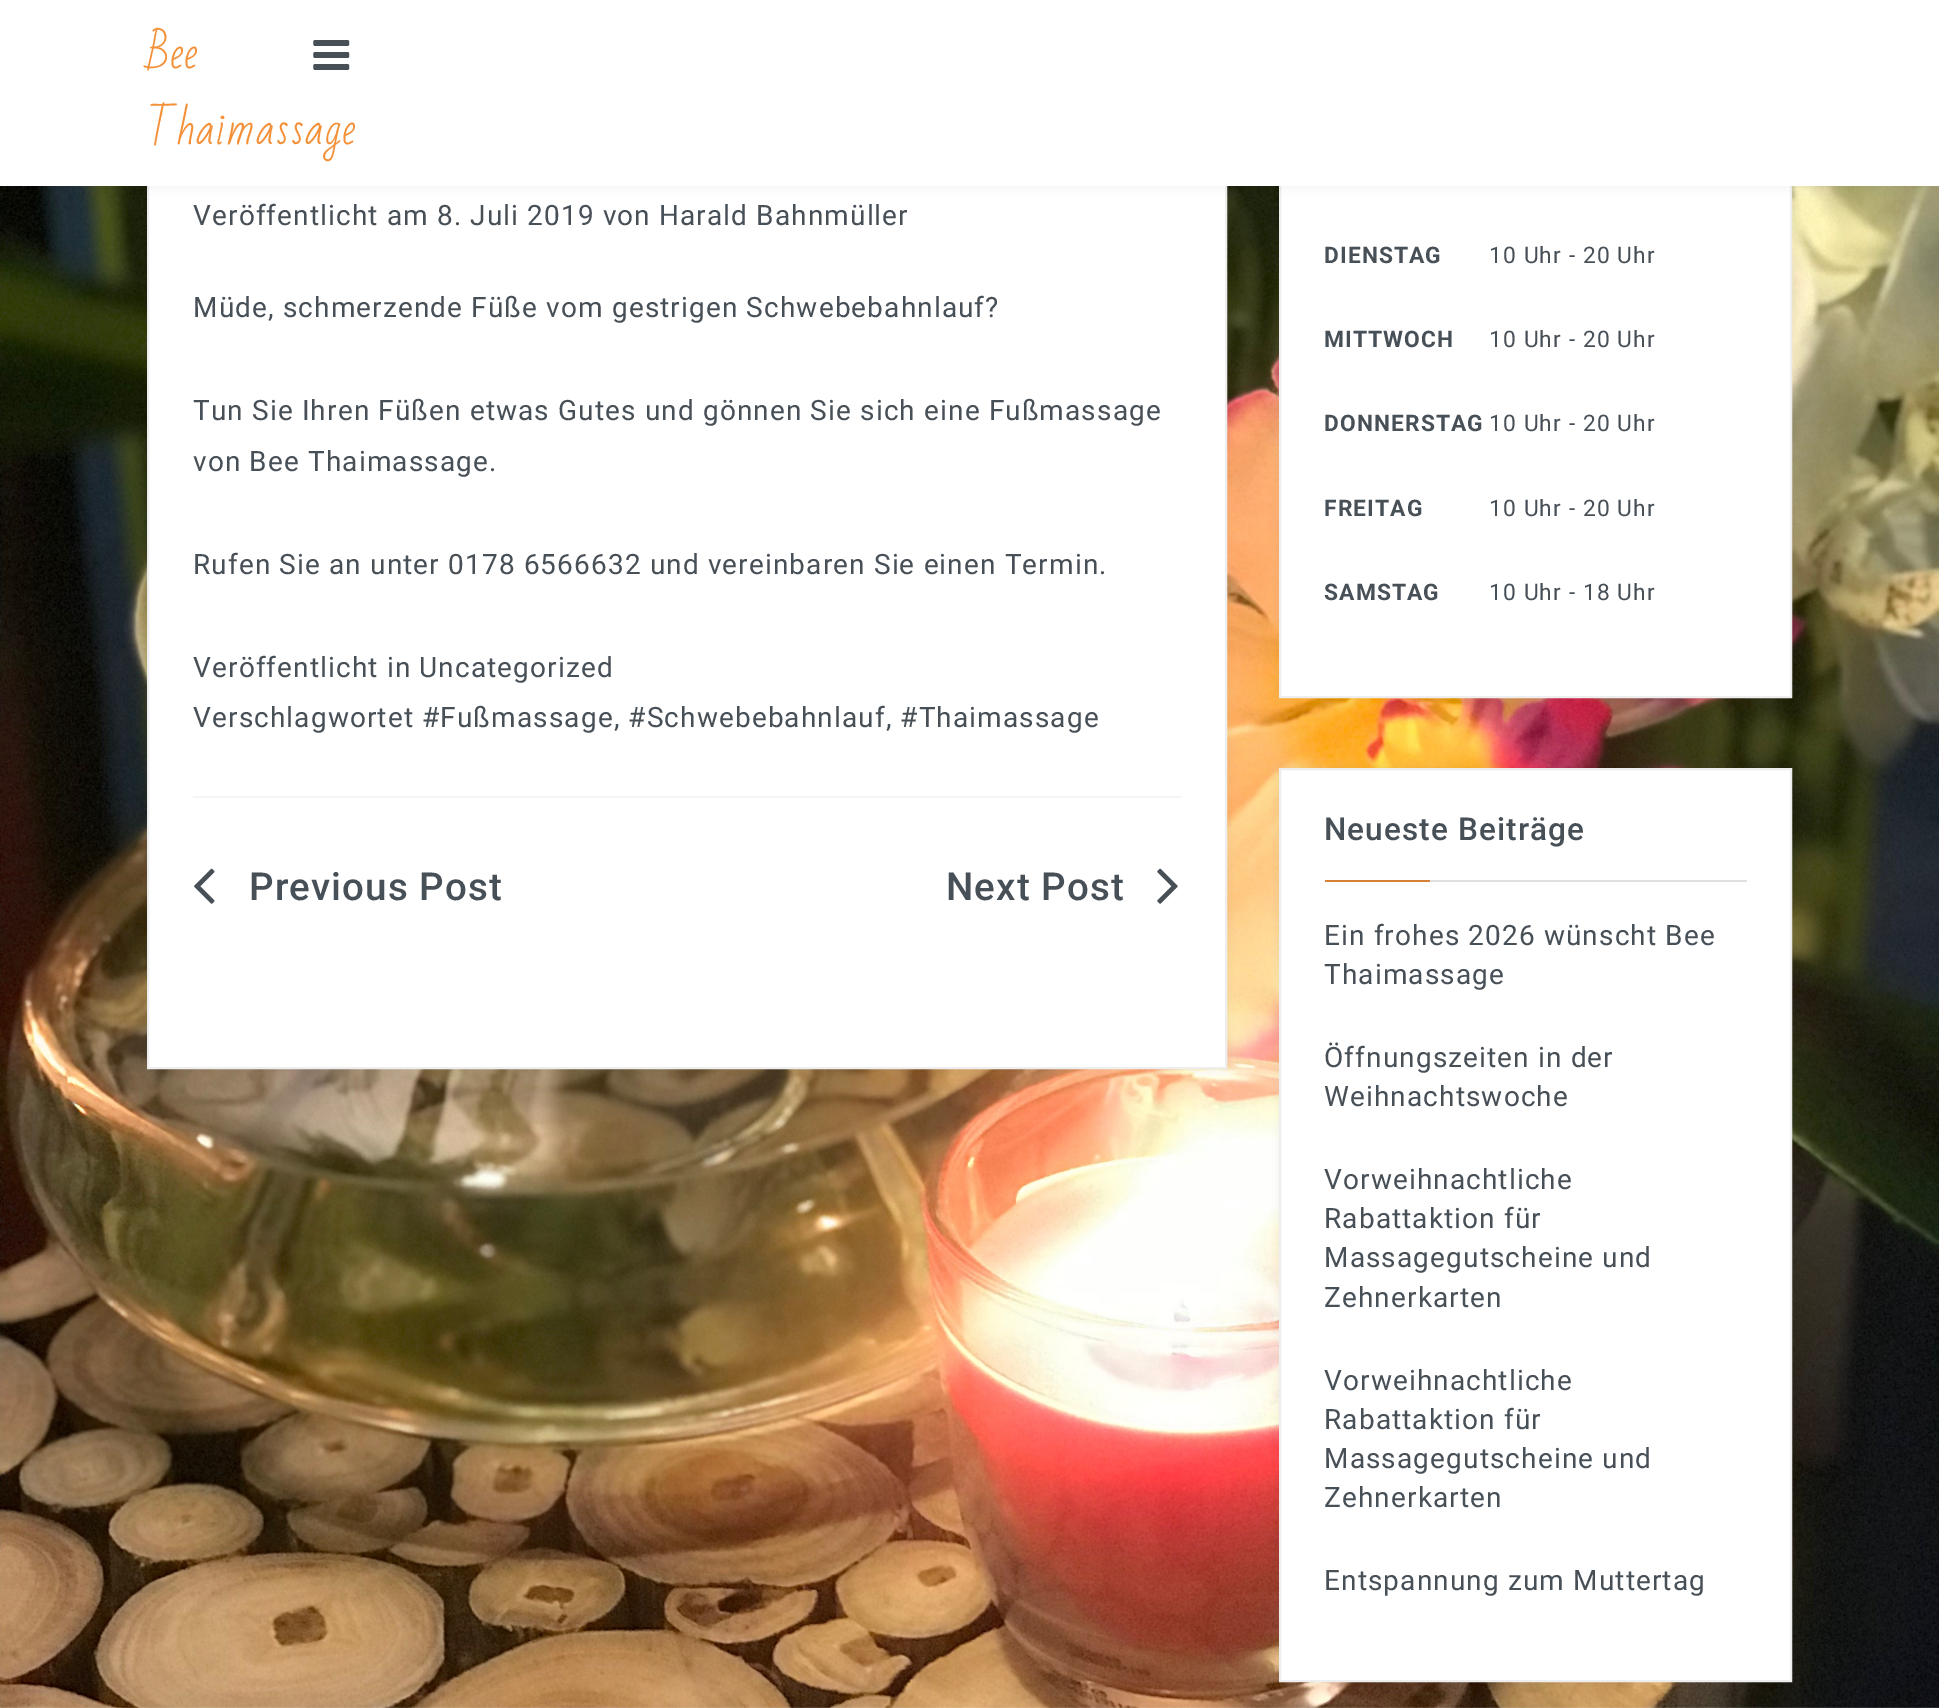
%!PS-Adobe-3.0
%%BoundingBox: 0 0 1939 1708
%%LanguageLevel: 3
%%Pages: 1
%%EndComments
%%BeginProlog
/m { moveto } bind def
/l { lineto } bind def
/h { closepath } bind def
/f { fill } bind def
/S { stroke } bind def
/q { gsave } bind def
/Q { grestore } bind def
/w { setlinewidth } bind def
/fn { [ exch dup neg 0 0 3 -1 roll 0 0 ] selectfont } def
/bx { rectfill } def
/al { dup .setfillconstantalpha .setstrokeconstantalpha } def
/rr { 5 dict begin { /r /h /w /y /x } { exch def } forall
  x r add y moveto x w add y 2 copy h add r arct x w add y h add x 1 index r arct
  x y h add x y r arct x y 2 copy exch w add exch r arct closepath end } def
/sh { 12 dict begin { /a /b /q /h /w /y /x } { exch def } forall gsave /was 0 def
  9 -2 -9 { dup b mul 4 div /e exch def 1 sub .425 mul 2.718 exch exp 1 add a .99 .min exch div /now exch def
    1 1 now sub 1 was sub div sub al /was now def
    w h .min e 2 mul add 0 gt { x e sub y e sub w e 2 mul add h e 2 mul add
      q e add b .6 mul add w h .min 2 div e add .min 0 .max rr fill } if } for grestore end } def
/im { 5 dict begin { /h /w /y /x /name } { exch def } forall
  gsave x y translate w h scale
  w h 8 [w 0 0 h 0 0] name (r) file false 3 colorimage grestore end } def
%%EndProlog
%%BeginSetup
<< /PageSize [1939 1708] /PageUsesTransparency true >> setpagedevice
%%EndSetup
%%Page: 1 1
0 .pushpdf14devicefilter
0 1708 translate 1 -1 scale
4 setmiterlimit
1 setgray
0 0 1939 1708 bx
(image0.raw) 0 186 1939 1522 im
0.153 0.188 0.224 setrgbcolor
147 19 1080 1050 0 4.5 0.05 sh
1 setgray
149 186 1076 881 bx
0.933 0.933 0.937 setrgbcolor
2 w
148 20 1078 1048 rectstroke
0.153 0.188 0.224 setrgbcolor
1279 19 513 679 0 4.5 0.05 sh
1 setgray
1281 186 509 510 bx
0.933 0.933 0.937 setrgbcolor
1280 20 511 677 rectstroke
0.153 0.188 0.224 setrgbcolor
0 0 1939 186 0 5 0.07 sh
1 setgray
0 0 1939 186 bx
/BadScript-Regular 42 fn
0.957 0.565 0.22 setrgbcolor
147 68 m 1.12 0 (Bee) ashow
147 144 m 1.12 0 (Thaimassage) ashow
(image1.raw) 313 40 37 30 im
/Roboto-Regular 28 fn
0.278 0.31 0.341 setrgbcolor
193 225 m 1.12 0 (Veröffentlicht am 8. Juli 2019 von Harald Bahnmüller) ashow
193 317 m 1.12 0 (Müde, schmerzende Füße vom gestrigen Schwebebahnlauf?) ashow
193 420 m 1.12 0 (Tun Sie Ihren Füßen etwas Gutes und gönnen Sie sich eine Fußmassage) ashow
193 471 m 1.12 0 (von Bee Thaimassage.) ashow
193 574 m 1.12 0 (Rufen Sie an unter 0178 6566632 und vereinbaren Sie einen Termin.) ashow
193 677 m 1.12 0 (Veröffentlicht in Uncategorized) ashow
193 727 m 1.12 0 (Verschlagwortet #Fußmassage, #Schwebebahnlauf, #Thaimassage) ashow
0.957 0.961 0.961 setrgbcolor
193 796 988 2 bx
(image2.raw) 194 868 21 36 im
/Roboto-Medium 38.5 fn
0.278 0.31 0.341 setrgbcolor
249 900 m 1.12 0 (Previous Post) ashow
946 900 m 1.12 0 (Next Post) ashow
(image3.raw) 1157 868 21 36 im
/Roboto-Bold 22.75 fn
1324 263 m 1.12 0 (DIENSTAG) ashow
/Roboto-Regular 22.75 fn
1489 263 m 1.12 0 (10 Uhr - 20 Uhr) ashow
/Roboto-Bold 22.75 fn
1324 347 m 1.12 0 (MITTWOCH) ashow
/Roboto-Regular 22.75 fn
1489 347 m 1.12 0 (10 Uhr - 20 Uhr) ashow
/Roboto-Bold 22.75 fn
1324 431 m 1.12 0 (DONNERSTAG) ashow
/Roboto-Regular 22.75 fn
1489 431 m 1.12 0 (10 Uhr - 20 Uhr) ashow
/Roboto-Bold 22.75 fn
1324 516 m 1.12 0 (FREITAG) ashow
/Roboto-Regular 22.75 fn
1489 516 m 1.12 0 (10 Uhr - 20 Uhr) ashow
/Roboto-Bold 22.75 fn
1324 600 m 1.12 0 (SAMSTAG) ashow
/Roboto-Regular 22.75 fn
1489 600 m 1.12 0 (10 Uhr - 18 Uhr) ashow
0.153 0.188 0.224 setrgbcolor
1279 768 513 914 0 4.5 0.05 sh
1 setgray
1280 769 m 1791 769 l 1791 1681 l 1280 1681 l h q f Q
0.933 0.933 0.937 setrgbcolor
S
/Roboto-Medium 31.5 fn
0.278 0.31 0.341 setrgbcolor
1324 840 m 1.12 0 (Neueste Beiträge) ashow
0.957 0.565 0.22 setrgbcolor
1325 880 105 2 bx
0.15 al
0.153 0.188 0.224 setrgbcolor
1325 880 422 2 bx
/Roboto-Regular 28 fn
1 al
0.278 0.31 0.341 setrgbcolor
1324 945 m 1.12 0 (Ein frohes 2026 wünscht Bee) ashow
1324 984 m 1.12 0 (Thaimassage) ashow
1324 1067 m 1.12 0 (Öffnungszeiten in der) ashow
1324 1106 m 1.12 0 (Weihnachtswoche) ashow
1324 1189 m 1.12 0 (Vorweihnachtliche) ashow
1324 1228 m 1.12 0 (Rabattaktion für) ashow
1324 1267 m 1.12 0 (Massagegutscheine und) ashow
1324 1307 m 1.12 0 (Zehnerkarten) ashow
1324 1390 m 1.12 0 (Vorweihnachtliche) ashow
1324 1429 m 1.12 0 (Rabattaktion für) ashow
1324 1468 m 1.12 0 (Massagegutscheine und) ashow
1324 1507 m 1.12 0 (Zehnerkarten) ashow
1324 1590 m 1.12 0 (Entspannung zum Muttertag) ashow
.poppdf14devicefilter showpage
%%EOF
